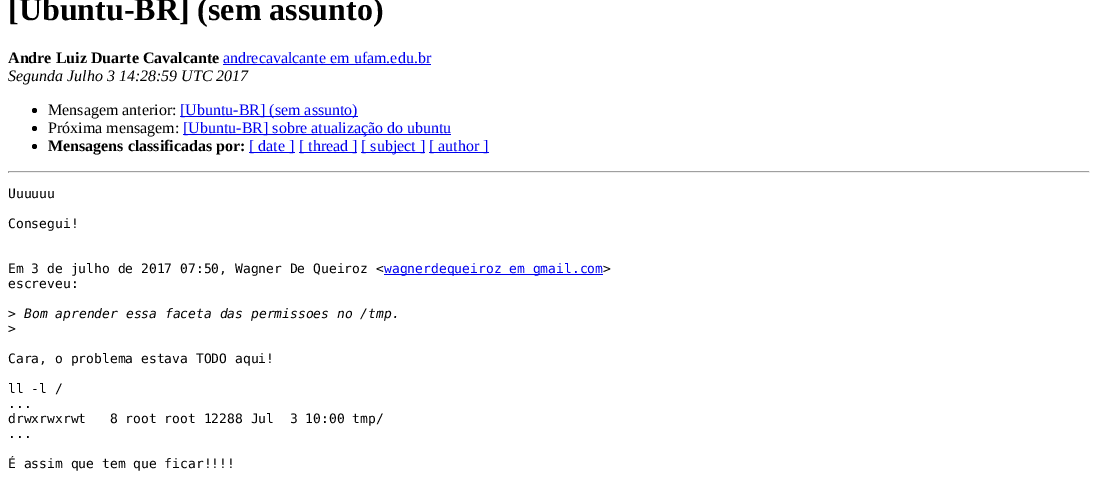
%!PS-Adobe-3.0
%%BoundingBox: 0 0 1098 479
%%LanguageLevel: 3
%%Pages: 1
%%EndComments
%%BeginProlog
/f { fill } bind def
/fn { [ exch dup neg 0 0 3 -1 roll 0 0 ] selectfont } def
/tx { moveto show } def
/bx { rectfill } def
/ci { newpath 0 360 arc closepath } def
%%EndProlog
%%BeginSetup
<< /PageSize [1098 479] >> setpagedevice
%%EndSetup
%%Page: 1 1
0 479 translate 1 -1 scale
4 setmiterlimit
1 setgray
0 0 1098 479 bx
/LiberationSerif-Bold 32 fn
0 setgray
([Ubuntu-BR] \(sem assunto\)) 8 20 tx
/LiberationSerif-Bold 16 fn
(Andre Luiz Duarte Cavalcante) 8 63 tx
/LiberationSerif-Regular 16 fn
0 0 0.933 setrgbcolor
(andrecavalcante em ufam.edu.br) 223 63 tx
223 64 208 1 bx
/LiberationSerif-Italic 16 fn
0 setgray
(Segunda Julho 3 14:28:59 UTC 2017) 8 81 tx
34.5 110.5 2.5 ci f
/LiberationSerif-Regular 16 fn
(Mensagem anterior:) 48 115 tx
0 0 0.933 setrgbcolor
180 116 178 1 bx
([Ubuntu-BR] \(sem assunto\)) 180 115 tx
0 setgray
34.5 128.5 2.5 ci f
(Próxima mensagem:) 48 133 tx
0 0 0.933 setrgbcolor
183 134 268 1 bx
([Ubuntu-BR] sobre atualização do ubuntu) 183 133 tx
0 setgray
34.5 146.5 2.5 ci f
/LiberationSerif-Bold 16 fn
(Mensagens classificadas por:) 48 151 tx
0 0 0.933 setrgbcolor
249 152 46 1 bx
/LiberationSerif-Regular 16 fn
([ date ]) 249 151 tx
299 152 58 1 bx
([ thread ]) 299 151 tx
361 152 64 1 bx
([ subject ]) 361 151 tx
429 152 60 1 bx
([ author ]) 429 151 tx
0.624 setgray
8 171 1082 1 bx
0.933 setgray
1089 171 1 2 bx
8 172 1082 1 bx
0.624 setgray
8 171 1 2 bx
/DejaVuSansMono-Regular 13 fn
0 setgray
(Uuuuuu) 8 198 tx
(Consegui!) 8 228 tx
(Em 3 de julho de 2017 07:50, Wagner De Queiroz <) 8 273 tx
0 0 0.933 setrgbcolor
384 274 219 1 bx
(wagnerdequeiroz em gmail.com) 384 273 tx
0 setgray
(>) 603 273 tx
(escreveu:) 8 288 tx
(>) 8 318 tx
/DejaVuSansMono-Italic 13 fn
(Bom aprender essa faceta das permissoes no /tmp.) 24 318 tx
/DejaVuSansMono-Regular 13 fn
(>) 8 333 tx
(Cara, o problema estava TODO aqui!) 8 363 tx
(ll -l /) 8 393 tx
(...) 8 408 tx
(drwxrwxrwt   8 root root 12288 Jul  3 10:00 tmp/) 8 423 tx
(...) 8 438 tx
(É assim que tem que ficar!!!!) 8 468 tx
showpage
%%EOF
